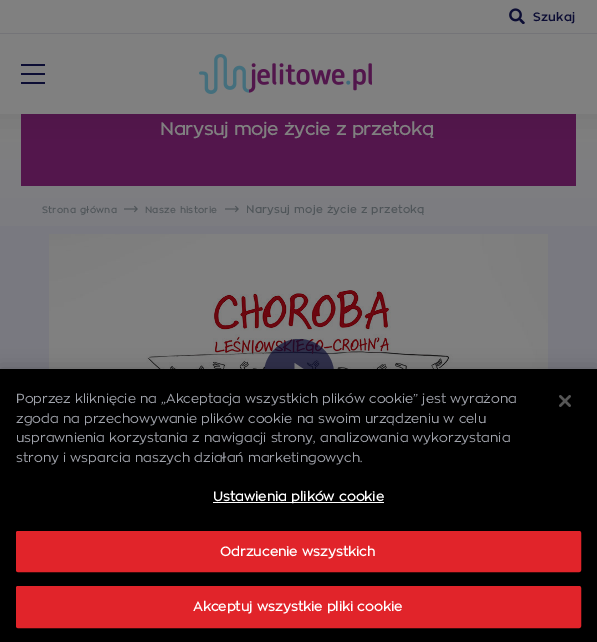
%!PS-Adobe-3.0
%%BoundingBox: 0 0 597 642
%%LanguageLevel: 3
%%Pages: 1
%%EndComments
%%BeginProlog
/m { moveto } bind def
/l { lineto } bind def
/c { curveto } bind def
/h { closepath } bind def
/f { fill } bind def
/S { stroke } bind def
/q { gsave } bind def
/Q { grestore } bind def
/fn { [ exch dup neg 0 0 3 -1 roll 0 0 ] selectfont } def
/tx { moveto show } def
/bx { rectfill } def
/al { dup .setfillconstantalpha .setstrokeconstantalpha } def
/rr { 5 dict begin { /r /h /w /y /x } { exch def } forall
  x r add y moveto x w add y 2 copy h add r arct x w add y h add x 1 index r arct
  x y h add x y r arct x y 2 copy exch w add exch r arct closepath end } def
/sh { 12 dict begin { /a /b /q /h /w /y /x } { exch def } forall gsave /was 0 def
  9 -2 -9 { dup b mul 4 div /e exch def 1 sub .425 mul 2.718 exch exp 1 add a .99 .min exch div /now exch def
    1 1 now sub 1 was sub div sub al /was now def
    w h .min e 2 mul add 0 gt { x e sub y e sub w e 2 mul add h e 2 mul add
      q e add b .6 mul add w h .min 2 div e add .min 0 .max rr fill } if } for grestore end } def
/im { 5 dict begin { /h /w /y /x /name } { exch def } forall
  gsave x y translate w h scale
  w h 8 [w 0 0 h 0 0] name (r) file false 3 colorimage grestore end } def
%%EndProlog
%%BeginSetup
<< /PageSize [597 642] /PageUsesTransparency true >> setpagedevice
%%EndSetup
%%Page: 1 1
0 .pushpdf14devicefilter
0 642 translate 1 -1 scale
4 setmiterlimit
0.475 0.475 0.502 setrgbcolor
0 0 597 642 bx
q 0 114 m 597 114 l 597 226 l 0 226 l h clip newpath
<< /ShadingType 2 /ColorSpace /DeviceRGB /Coords [299 -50 299 286] /Extend [true true] /Function << /FunctionType 3 /Domain [0 1] /Functions [<< /FunctionType 2 /Domain [0 1] /C0 [0.502 0.502 0.502] /C1 [0.502 0.502 0.502] /N 1 >> << /FunctionType 2 /Domain [0 1] /C0 [0.502 0.502 0.502] /C1 [0.475 0.475 0.502] /N 1 >>] /Bounds [0.5] /Encode [0 1 0 1] >> >> shfill Q
0.325 0.086 0.298 setrgbcolor
21 114 555 72 bx
0 setgray
-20 -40 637 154 0 20 0.1 sh
0.502 setgray
0 0 597 114 bx
0.455 0.455 0.471 setrgbcolor
0 33 597 1 bx
(image0.raw) 509 8 16 16 im
/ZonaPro-SemiBold 12 fn
0.047 0.051 0.204 setrgbcolor
533 21 m 0.25 0 (Szukaj) ashow
21 64 24 2 bx
21 73 24 2 bx
21 82 24 2 bx
(image1.raw) 199 54 173 40 im
/ZonaPro-Bold 17.5 fn
0.502 setgray
(Narysuj moje życie z przetoką) 160 135 tx
/ZonaPro-Bold 9 fn
0.31 0.333 0.349 setrgbcolor
42 213 m 0.5 0 (Strona główna) ashow
(image2.raw) 124 205 14 8 im
145 213 m 0.5 0 (Nasze historie) ashow
(image2.raw) 225 205 14 8 im
/ZonaPro-Bold 10.5 fn
246 213 m 0.5 0 (Narysuj moje życie z przetoką) ashow
(image3.raw) 49 234 499 135 im
0.7 al
0.047 0.051 0.204 setrgbcolor
299 339 m 280 339 264 355 264 374 c 264 393 280 409 299 409 c 318 409 334 393 334 374 c 334 355 318 339 299 339 c h eofill
1 al
0.502 setgray
311 374 m 294.5 385 l 294.5 363 l h f
0 setgray
0 369 597 273 0 9 0.2 sh
0 369 597 273 bx
/ZonaPro-Light 13 fn
0.631 0.643 0.675 setrgbcolor
(Poprzez kliknięcie na „Akceptacja wszystkich plików cookie” jest wyrażona) 16 403 tx
(zgoda na przechowywanie plików cookie na swoim urządzeniu w celu) 16 423 tx
(usprawnienia korzystania z nawigacji strony, analizowania wykorzystania) 16 442 tx
(strony i wsparcia naszych działań marketingowych.) 16 462 tx
1 setgray
213 502 171 1 bx
/ZonaPro-Bold 13 fn
213 501 m 0.1 0 (Ustawienia plików cookie) ashow
0.882 0.141 0.165 setrgbcolor
16.5 531.5 564 40 1.5 rr q f Q
S
1 setgray
220 556 m 0.1 0 (Odrzucenie wszystkich) ashow
0.882 0.141 0.165 setrgbcolor
16.5 586.5 564 41 1.5 rr q f Q
S
1 setgray
193 611 m 0.1 0 (Akceptuj wszystkie pliki cookie) ashow
(image4.raw) 559 395 12 12 im
.poppdf14devicefilter showpage
%%EOF
